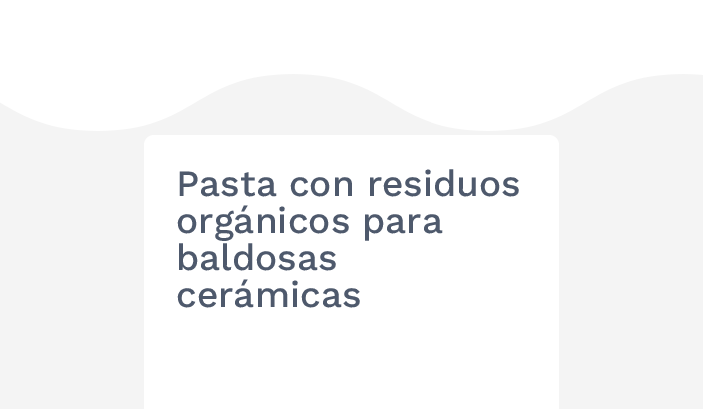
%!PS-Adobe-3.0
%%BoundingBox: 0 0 703 409
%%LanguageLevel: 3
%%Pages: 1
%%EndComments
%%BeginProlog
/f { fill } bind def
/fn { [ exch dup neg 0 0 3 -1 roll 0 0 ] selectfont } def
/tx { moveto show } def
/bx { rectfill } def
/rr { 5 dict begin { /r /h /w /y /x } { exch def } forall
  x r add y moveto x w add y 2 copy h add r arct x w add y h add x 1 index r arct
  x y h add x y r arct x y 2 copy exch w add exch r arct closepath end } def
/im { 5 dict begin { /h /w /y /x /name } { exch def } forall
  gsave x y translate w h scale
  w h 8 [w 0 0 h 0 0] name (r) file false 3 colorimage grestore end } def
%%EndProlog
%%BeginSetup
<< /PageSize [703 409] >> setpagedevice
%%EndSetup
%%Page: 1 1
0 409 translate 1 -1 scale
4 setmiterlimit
1 setgray
0 0 703 409 bx
0.957 setgray
0 74 703 335 bx
(image0.raw) 0 55 703 76 im
1 setgray
144 135 415 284 10 rr f
/WorkSans-Medium 37 fn
0.306 0.349 0.424 setrgbcolor
(Pasta con residuos) 176 196 tx
(orgánicos para) 176 233 tx
(baldosas) 176 270 tx
(cerámicas) 176 307 tx
showpage
%%EOF
